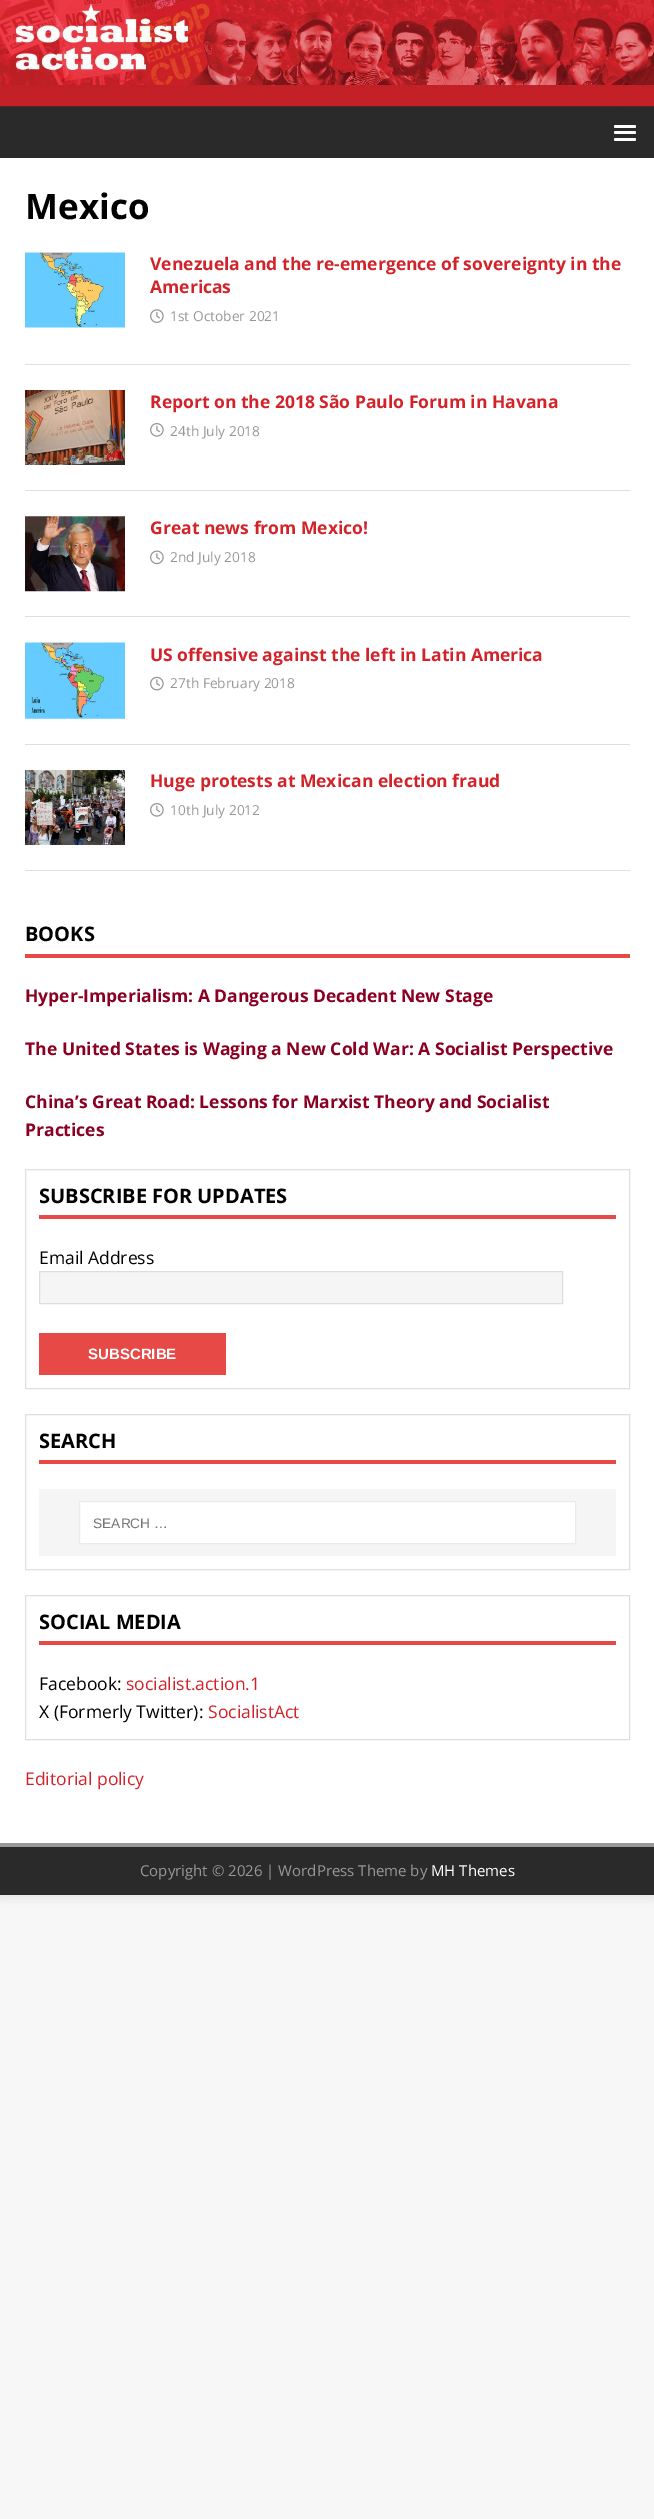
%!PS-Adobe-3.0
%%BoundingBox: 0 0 654 2519
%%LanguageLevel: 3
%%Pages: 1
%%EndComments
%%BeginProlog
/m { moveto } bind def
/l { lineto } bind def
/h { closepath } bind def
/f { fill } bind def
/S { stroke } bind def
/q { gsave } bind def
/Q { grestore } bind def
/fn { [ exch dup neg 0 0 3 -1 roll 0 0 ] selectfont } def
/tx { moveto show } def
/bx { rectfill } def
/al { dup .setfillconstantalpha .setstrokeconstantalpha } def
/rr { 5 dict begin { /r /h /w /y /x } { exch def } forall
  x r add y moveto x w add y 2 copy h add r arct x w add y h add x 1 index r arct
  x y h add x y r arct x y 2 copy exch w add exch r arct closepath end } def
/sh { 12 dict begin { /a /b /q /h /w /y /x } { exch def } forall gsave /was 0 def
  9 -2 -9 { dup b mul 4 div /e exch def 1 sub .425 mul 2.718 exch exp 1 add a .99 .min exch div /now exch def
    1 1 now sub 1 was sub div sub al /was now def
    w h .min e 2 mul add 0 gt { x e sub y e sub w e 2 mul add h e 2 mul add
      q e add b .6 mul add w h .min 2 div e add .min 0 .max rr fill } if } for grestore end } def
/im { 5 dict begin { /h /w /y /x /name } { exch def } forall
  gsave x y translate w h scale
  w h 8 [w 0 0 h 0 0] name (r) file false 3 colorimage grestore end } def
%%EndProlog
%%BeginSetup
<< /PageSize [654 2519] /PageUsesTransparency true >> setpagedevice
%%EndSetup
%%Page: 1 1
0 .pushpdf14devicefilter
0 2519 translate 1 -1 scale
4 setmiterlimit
0.969 setgray
0 0 654 2519 bx
0.196 setgray
0 0 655 1895 0 6 0.17 sh
0.165 setgray
0 106 654 52 bx
(image0.raw) 0 0 654 107 im
1 setgray
614 125 22 3 1.5 rr f
614 131 22 3 1.5 rr f
614 138 22 3 1.5 rr f
0 158 654 1685 bx
/OpenSans-Bold 35 fn
0 setgray
(Mexico) 25 219 tx
0.875 setgray
25 364 605 1 bx
(image1.raw) 25 252 100 76 im
/OpenSans-Bold 17.5 fn
0.824 0.137 0.165 setrgbcolor
(Venezuela and the re-emergence of sovereignty in the) 150 270 tx
(Americas) 150 293 tx
(image2.raw) 150 309 14 14 im
/OpenSans-Regular 13.75 fn
0.592 setgray
(1st October 2021) 170 321 tx
0.875 setgray
25 490 605 1 bx
(image3.raw) 25 390 100 75 im
/OpenSans-Bold 17.5 fn
0.824 0.137 0.165 setrgbcolor
(Report on the 2018 São Paulo Forum in Havana) 150 408 tx
(image4.raw) 150 423 14 14 im
/OpenSans-Regular 13.75 fn
0.592 setgray
(24th July 2018) 170 436 tx
0.875 setgray
25 616 605 1 bx
(image5.raw) 25 516 100 76 im
/OpenSans-Bold 17.5 fn
0.824 0.137 0.165 setrgbcolor
(Great news from Mexico!) 150 534 tx
(image6.raw) 150 550 14 15 im
/OpenSans-Regular 13.75 fn
0.592 setgray
(2nd July 2018) 170 562 tx
0.875 setgray
25 744 605 1 bx
(image7.raw) 25 642 100 77 im
/OpenSans-Bold 17.5 fn
0.824 0.137 0.165 setrgbcolor
(US offensive against the left in Latin America) 150 661 tx
(image8.raw) 150 676 14 15 im
/OpenSans-Regular 13.75 fn
0.592 setgray
(27th February 2018) 170 688 tx
0.875 setgray
25 870 605 1 bx
(image9.raw) 25 770 100 75 im
/OpenSans-Bold 17.5 fn
0.824 0.137 0.165 setrgbcolor
(Huge protests at Mexican election fraud) 150 787 tx
(image4.raw) 150 803 14 14 im
/OpenSans-Regular 13.75 fn
0.592 setgray
(10th July 2012) 170 815 tx
0.902 0.286 0.275 setrgbcolor
25 954 605 4 bx
/OpenSans-Bold 20 fn
0 setgray
(BOOKS) 25 941 tx
/OpenSans-Bold 17.5 fn
0.541 0 0.133 setrgbcolor
(Hyper-Imperialism: A Dangerous Decadent New Stage) 25 1002 tx
(The United States is Waging a New Cold War: A Socialist Perspective) 25 1055 tx
(China’s Great Road: Lessons for Marxist Theory and Socialist) 25 1108 tx
(Practices) 25 1136 tx
0.875 setgray
25.5 1169.5 604 219 rectstroke
0.902 0.286 0.275 setrgbcolor
39 1215 577 4 bx
/OpenSans-Bold 20 fn
0 setgray
(SUBSCRIBE FOR UPDATES) 39 1203 tx
/OpenSans-Regular 17.5 fn
(Email Address) 39 1264 tx
0.961 setgray
39.5 1271.5 m 562.5 1271.5 l 562.5 1303.5 l 39.5 1303.5 l h q f Q
0.867 setgray
S
0.902 0.286 0.275 setrgbcolor
39 1333 187 42 bx
/LiberationSans-Bold 15 fn
1 setgray
(SUBSCRIBE) 88 1359 tx
0.875 setgray
25.5 1414.5 604 155 rectstroke
0.902 0.286 0.275 setrgbcolor
39 1460 577 4 bx
/OpenSans-Bold 20 fn
0 setgray
(SEARCH) 39 1448 tx
0.961 setgray
39 1489 577 67 bx
1 setgray
79.5 1501.5 m 575.5 1501.5 l 575.5 1543.5 l 79.5 1543.5 l h q f Q
0.922 setgray
S
/LiberationSans-Regular 13.75 fn
0.459 setgray
(SEARCH …) 93 1528 tx
0.875 setgray
25.5 1595.5 604 144 rectstroke
0.902 0.286 0.275 setrgbcolor
39 1641 577 4 bx
/OpenSans-Bold 20 fn
0 setgray
(SOCIAL MEDIA) 39 1629 tx
/OpenSans-Regular 17.5 fn
(Facebook:) 39 1690 tx
0.824 0.137 0.165 setrgbcolor
(socialist.action.1) 126 1690 tx
0 setgray
(X \(Formerly Twitter\):) 39 1718 tx
0.824 0.137 0.165 setrgbcolor
(SocialistAct) 208 1718 tx
(Editorial policy) 25 1785 tx
0.165 setgray
0 1847 654 48 bx
0.6 setgray
0 1843 654 4 bx
/OpenSans-Regular 15 fn
0.592 setgray
(Copyright © 2026 | WordPress Theme by) 140 1876 tx
1 setgray
(MH Themes) 431 1876 tx
.poppdf14devicefilter showpage
%%EOF
